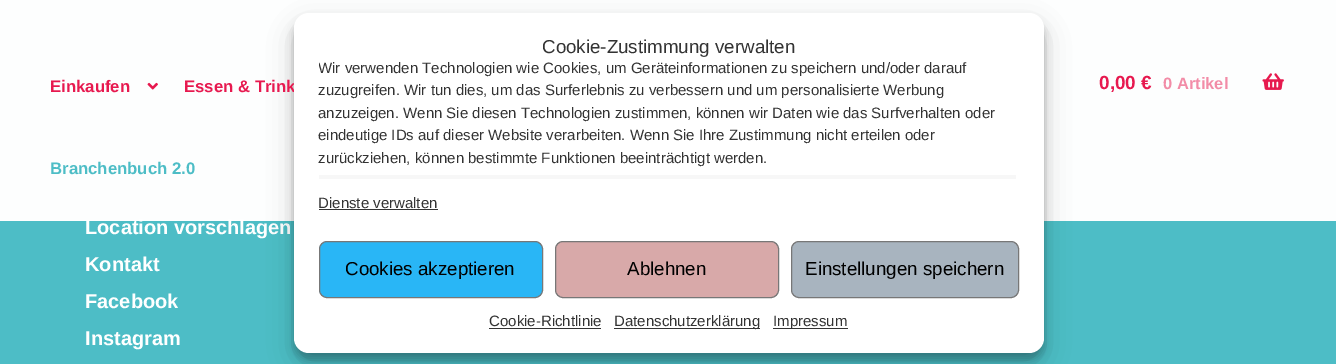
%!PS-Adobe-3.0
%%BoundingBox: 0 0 1336 364
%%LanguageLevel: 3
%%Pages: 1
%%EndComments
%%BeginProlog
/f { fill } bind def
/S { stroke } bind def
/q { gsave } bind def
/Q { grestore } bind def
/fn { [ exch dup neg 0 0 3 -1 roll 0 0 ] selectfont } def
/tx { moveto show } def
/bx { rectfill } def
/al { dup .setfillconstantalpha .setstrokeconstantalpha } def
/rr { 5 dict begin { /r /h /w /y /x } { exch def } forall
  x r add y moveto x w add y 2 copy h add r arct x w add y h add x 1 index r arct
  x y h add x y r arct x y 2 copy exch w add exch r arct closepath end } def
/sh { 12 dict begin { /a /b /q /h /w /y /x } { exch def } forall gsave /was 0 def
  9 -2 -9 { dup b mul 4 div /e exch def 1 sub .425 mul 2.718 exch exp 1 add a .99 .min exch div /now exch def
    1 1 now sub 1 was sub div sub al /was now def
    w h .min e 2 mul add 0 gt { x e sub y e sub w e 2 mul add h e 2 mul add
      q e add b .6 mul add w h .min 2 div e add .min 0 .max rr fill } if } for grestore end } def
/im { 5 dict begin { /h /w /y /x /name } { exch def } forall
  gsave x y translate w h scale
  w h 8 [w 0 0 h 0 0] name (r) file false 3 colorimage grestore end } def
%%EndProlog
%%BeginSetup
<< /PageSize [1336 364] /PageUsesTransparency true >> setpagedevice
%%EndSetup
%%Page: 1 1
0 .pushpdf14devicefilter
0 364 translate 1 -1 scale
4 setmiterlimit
0.302 0.741 0.776 setrgbcolor
0 0 1336 364 bx
/LiberationSans-Bold 20 fn
1 setgray
(Location vorschlagen) 85 234 tx
0.9 al
0 0 1336 221 bx
0 0 1336 221 bx
1 al
0 setgray
294 20 750 340 15 4 0.23 sh
294 25 750 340 15 12.5 0.19 sh
/LiberationSans-Bold 16.75 fn
0.906 0.098 0.31 setrgbcolor
(Essen & Trink) 184 92 tx
1 setgray
294 13 750 340 15 rr f
/LiberationSans-Regular 18.75 fn
0.2 setgray
(Cookie-Zustimmung verwalten) 542 53 tx
q
319 56 700 123 rectclip
/LiberationSans-Regular 15 fn
(Wir verwenden Technologien wie Cookies, um Geräteinformationen zu speichern und/oder darauf) 318 73 tx
Q
/LiberationSans-Regular 15 fn
(zuzugreifen. Wir tun dies, um das Surferlebnis zu verbessern und um personalisierte Werbung) 318 95 tx
(anzuzeigen. Wenn Sie diesen Technologien zustimmen, können wir Daten wie das Surfverhalten oder) 318 118 tx
(eindeutige IDs auf dieser Website verarbeiten. Wenn Sie Ihre Zustimmung nicht erteilen oder) 318 140 tx
(zurückziehen, können bestimmte Funktionen beeinträchtigt werden.) 318 163 tx
0.969 setgray
319 175 697 4 bx
0.2 setgray
(Dienste verwalten) 318 208 tx
319 209 119 1 bx
0.161 0.714 0.965 setrgbcolor
319.5 241.5 223 56 7.5 rr q f Q
0.467 setgray
S
/LiberationSans-Regular 18.75 fn
0 setgray
(Cookies akzeptieren) 345 275 tx
0.847 0.663 0.663 setrgbcolor
555.5 241.5 223 56 7.5 rr q f Q
0.467 setgray
S
0 setgray
(Ablehnen) 627 275 tx
0.659 0.706 0.749 setrgbcolor
791.5 241.5 227 56 7.5 rr q f Q
0.467 setgray
S
0 setgray
(Einstellungen speichern) 805 275 tx
/LiberationSans-Regular 15 fn
0.2 setgray
(Cookie-Richtlinie) 489 326 tx
489 328 112 1 bx
614 328 146 1 bx
(Datenschutzerklärung) 614 326 tx
773 328 75 1 bx
(Impressum) 773 326 tx
/LiberationSans-Bold 16.75 fn
0.906 0.098 0.31 setrgbcolor
(Einkaufen) 50 92 tx
(image0.raw) 147 82 11 8 im
0.302 0.741 0.776 setrgbcolor
(Branchenbuch 2.0) 50 174 tx
/LiberationSans-Bold 19 fn
0.906 0.098 0.31 setrgbcolor
(0,00 €) 1099 89 tx
/LiberationSans-Bold 16.5 fn
0.949 0.549 0.655 setrgbcolor
(0 Artikel) 1163 89 tx
(image1.raw) 1262 73 22 17 im
/LiberationSans-Bold 20 fn
1 setgray
(Kontakt) 85 271 tx
(Facebook) 85 308 tx
(Instagram) 85 345 tx
.poppdf14devicefilter showpage
%%EOF
